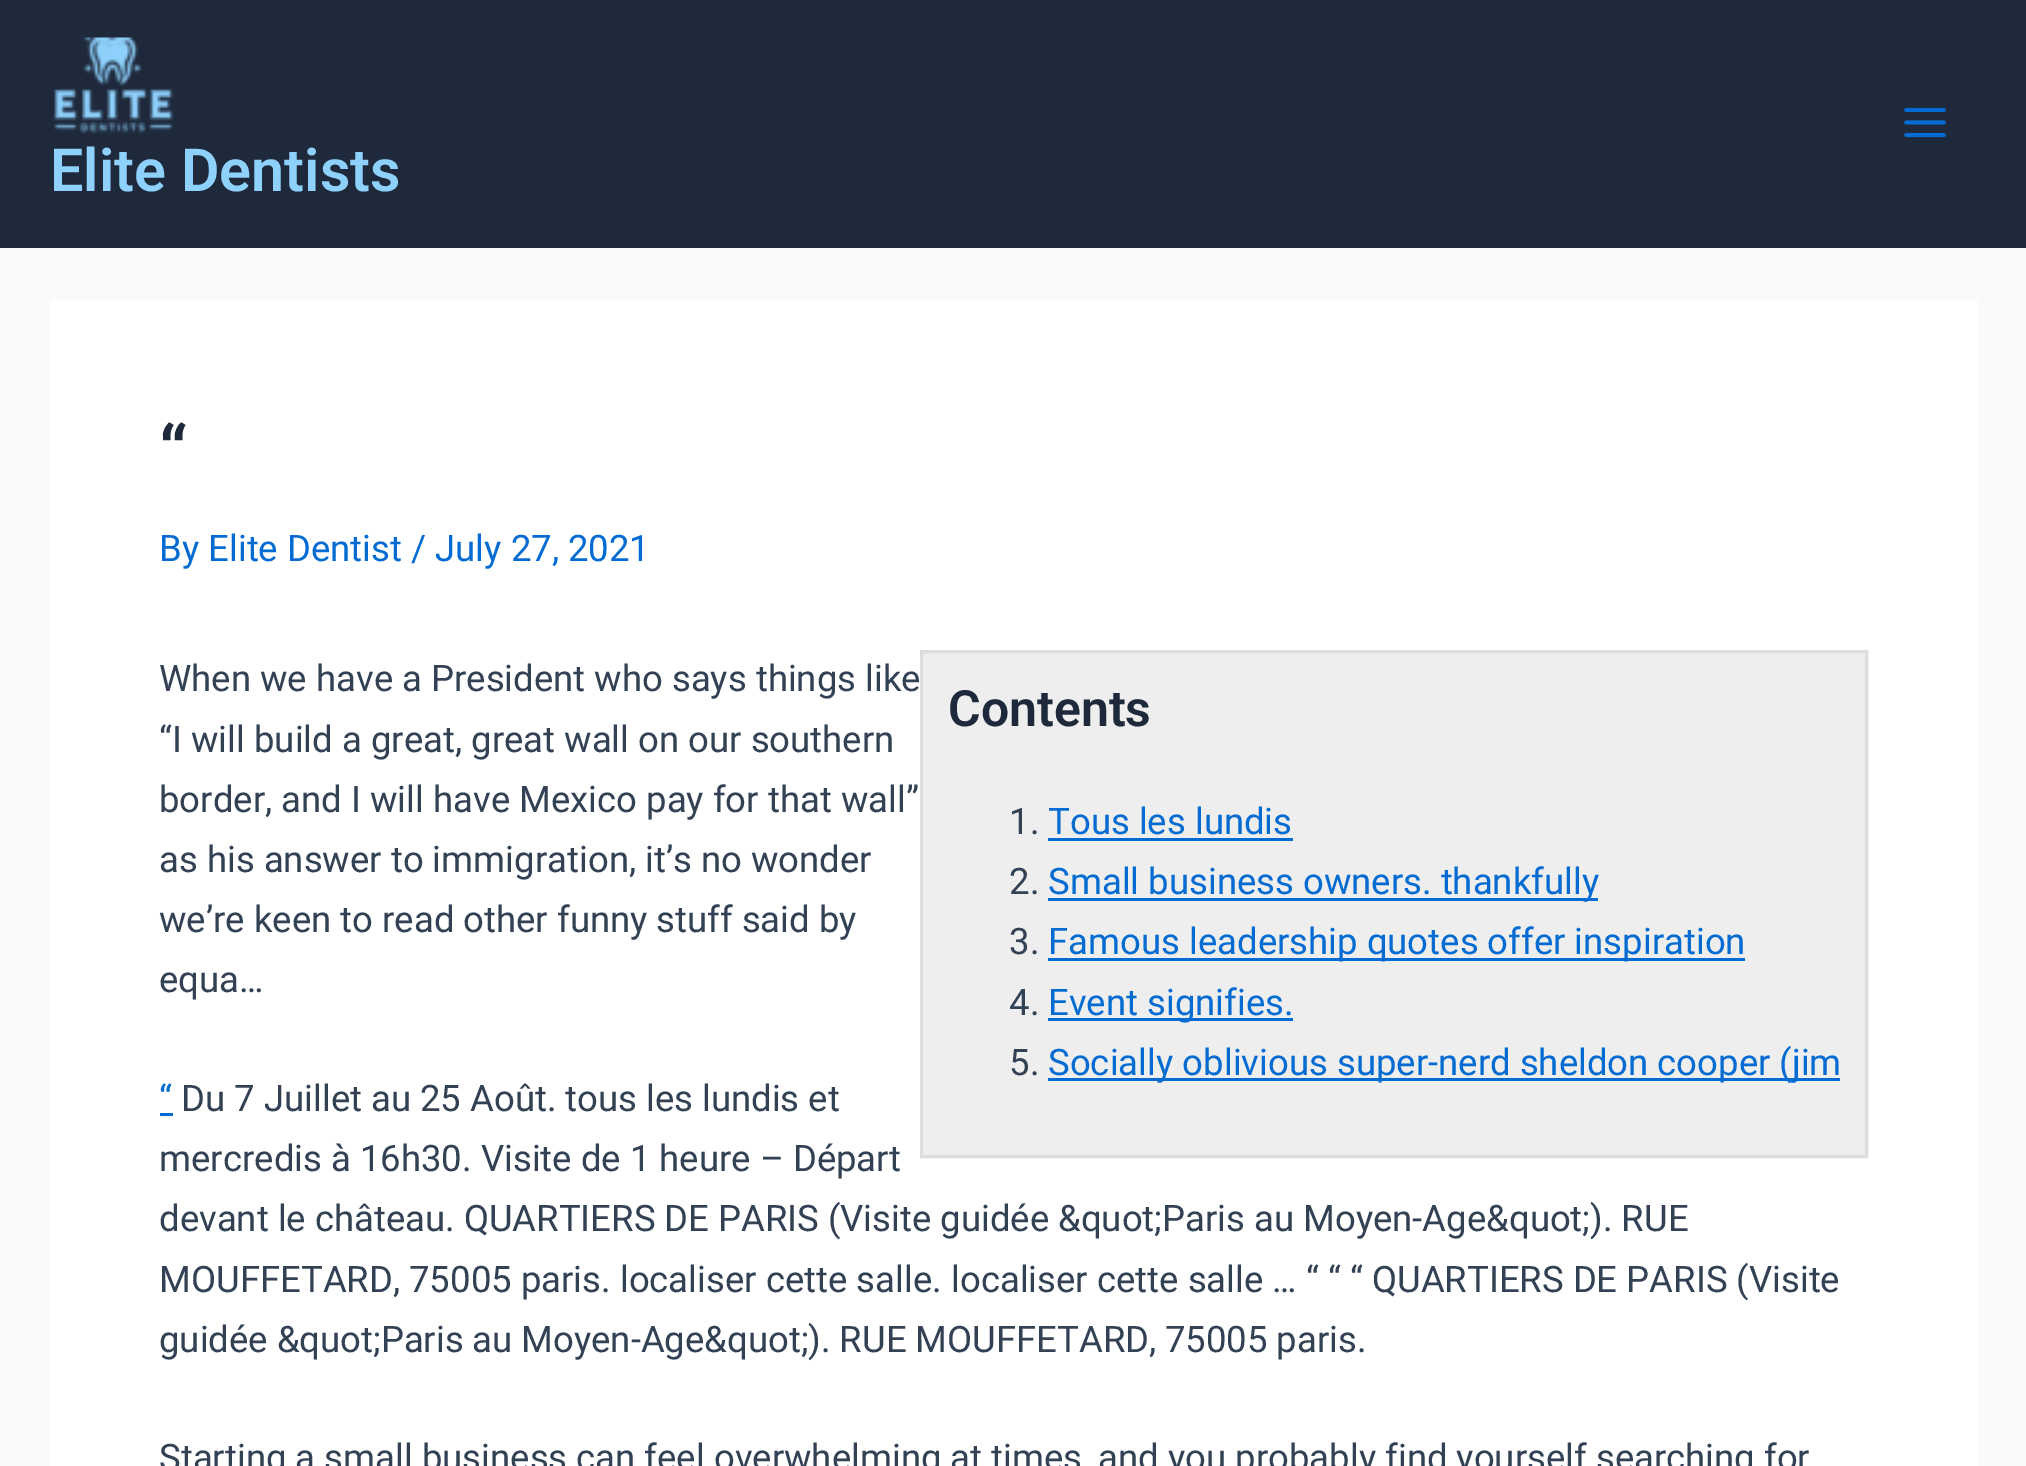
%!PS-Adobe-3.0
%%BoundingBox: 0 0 2026 1466
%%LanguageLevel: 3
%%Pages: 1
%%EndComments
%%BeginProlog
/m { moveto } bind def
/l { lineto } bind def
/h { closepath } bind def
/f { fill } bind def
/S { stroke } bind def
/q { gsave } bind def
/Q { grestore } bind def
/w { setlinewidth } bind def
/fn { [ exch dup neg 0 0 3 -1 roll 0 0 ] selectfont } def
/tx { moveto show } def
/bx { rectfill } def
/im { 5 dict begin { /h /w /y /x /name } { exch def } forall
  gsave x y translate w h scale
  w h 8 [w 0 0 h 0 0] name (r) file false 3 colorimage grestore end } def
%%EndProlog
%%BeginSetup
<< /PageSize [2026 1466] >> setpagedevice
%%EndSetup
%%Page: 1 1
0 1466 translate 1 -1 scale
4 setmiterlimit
0.976 0.98 0.984 setrgbcolor
0 0 2026 1466 bx
0.118 0.161 0.231 setrgbcolor
0 0 2026 248 bx
(image0.raw) 1904 107 42 31 im
(image1.raw) 52 37 122 97 im
/Roboto-SemiBold 59.25 fn
0.557 0.82 0.988 setrgbcolor
(Elite Dentists) 50 191 tx
1 setgray
50 300 1928 1166 bx
/Roboto-SemiBold 73 fn
0.118 0.161 0.231 setrgbcolor
(“) 159 478 tx
/Roboto-Regular 36.5 fn
0.016 0.42 0.824 setrgbcolor
(By Elite Dentist / July 27, 2021) 159 561 tx
0.2 0.255 0.333 setrgbcolor
(When we have a President who says things like) 159 691 tx
(“I will build a great, great wall on our southern) 159 752 tx
(border, and I will have Mexico pay for that wall”) 159 812 tx
(as his answer to immigration, it’s no wonder) 159 872 tx
(we’re keen to read other funny stuff said by) 159 932 tx
(equa…) 159 992 tx
0.933 setgray
921.5 651.5 m 1866.5 651.5 l 1866.5 1156.5 l 921.5 1156.5 l h q f Q
0.867 setgray
3 w
S
/Roboto-SemiBold 50 fn
0.118 0.161 0.231 setrgbcolor
(Contents) 948 726 tx
/Roboto-Regular 36.5 fn
0.2 0.255 0.333 setrgbcolor
(1.) 1009 834 tx
0.016 0.42 0.824 setrgbcolor
(Tous les lundis) 1048 834 tx
1048 838 245 3 bx
0.2 0.255 0.333 setrgbcolor
(2.) 1009 894 tx
0.016 0.42 0.824 setrgbcolor
1048 898 550 3 bx
(Small business owners. thankfully) 1048 894 tx
0.2 0.255 0.333 setrgbcolor
(3.) 1009 954 tx
0.016 0.42 0.824 setrgbcolor
1048 958 697 3 bx
(Famous leadership quotes offer inspiration) 1048 954 tx
0.2 0.255 0.333 setrgbcolor
(4.) 1009 1015 tx
0.016 0.42 0.824 setrgbcolor
1048 1018 245 3 bx
(Event signifies.) 1048 1015 tx
0.2 0.255 0.333 setrgbcolor
(5.) 1009 1075 tx
0.016 0.42 0.824 setrgbcolor
1048 1078 792 3 bx
(Socially oblivious super-nerd sheldon cooper \(jim) 1048 1075 tx
(“) 159 1111 tx
160 1113 13 3 bx
0.2 0.255 0.333 setrgbcolor
(Du 7 Juillet au 25 Août.) 181 1111 tx
(tous les lundis et) 565 1111 tx
(mercredis à 16h30. Visite de 1 heure – Départ) 159 1171 tx
159 1231 m -0.1 0 32 (devant le château. QUARTIERS DE PARIS \(Visite guidée &quot;Paris au Moyen-Age&quot;\). RUE) widthshow
(MOUFFETARD, 75005 paris. localiser cette salle. localiser cette salle … “ “ “ QUARTIERS DE PARIS \(Visite) 159 1292 tx
159 1352 m -0.25 0 32 (guidée &quot;Paris au Moyen-Age&quot;\). RUE MOUFFETARD, 75005 paris.) widthshow
(Starting a small business can feel overwhelming at times, and you probably find yourself searching for) 159 1470 tx
showpage
%%EOF
